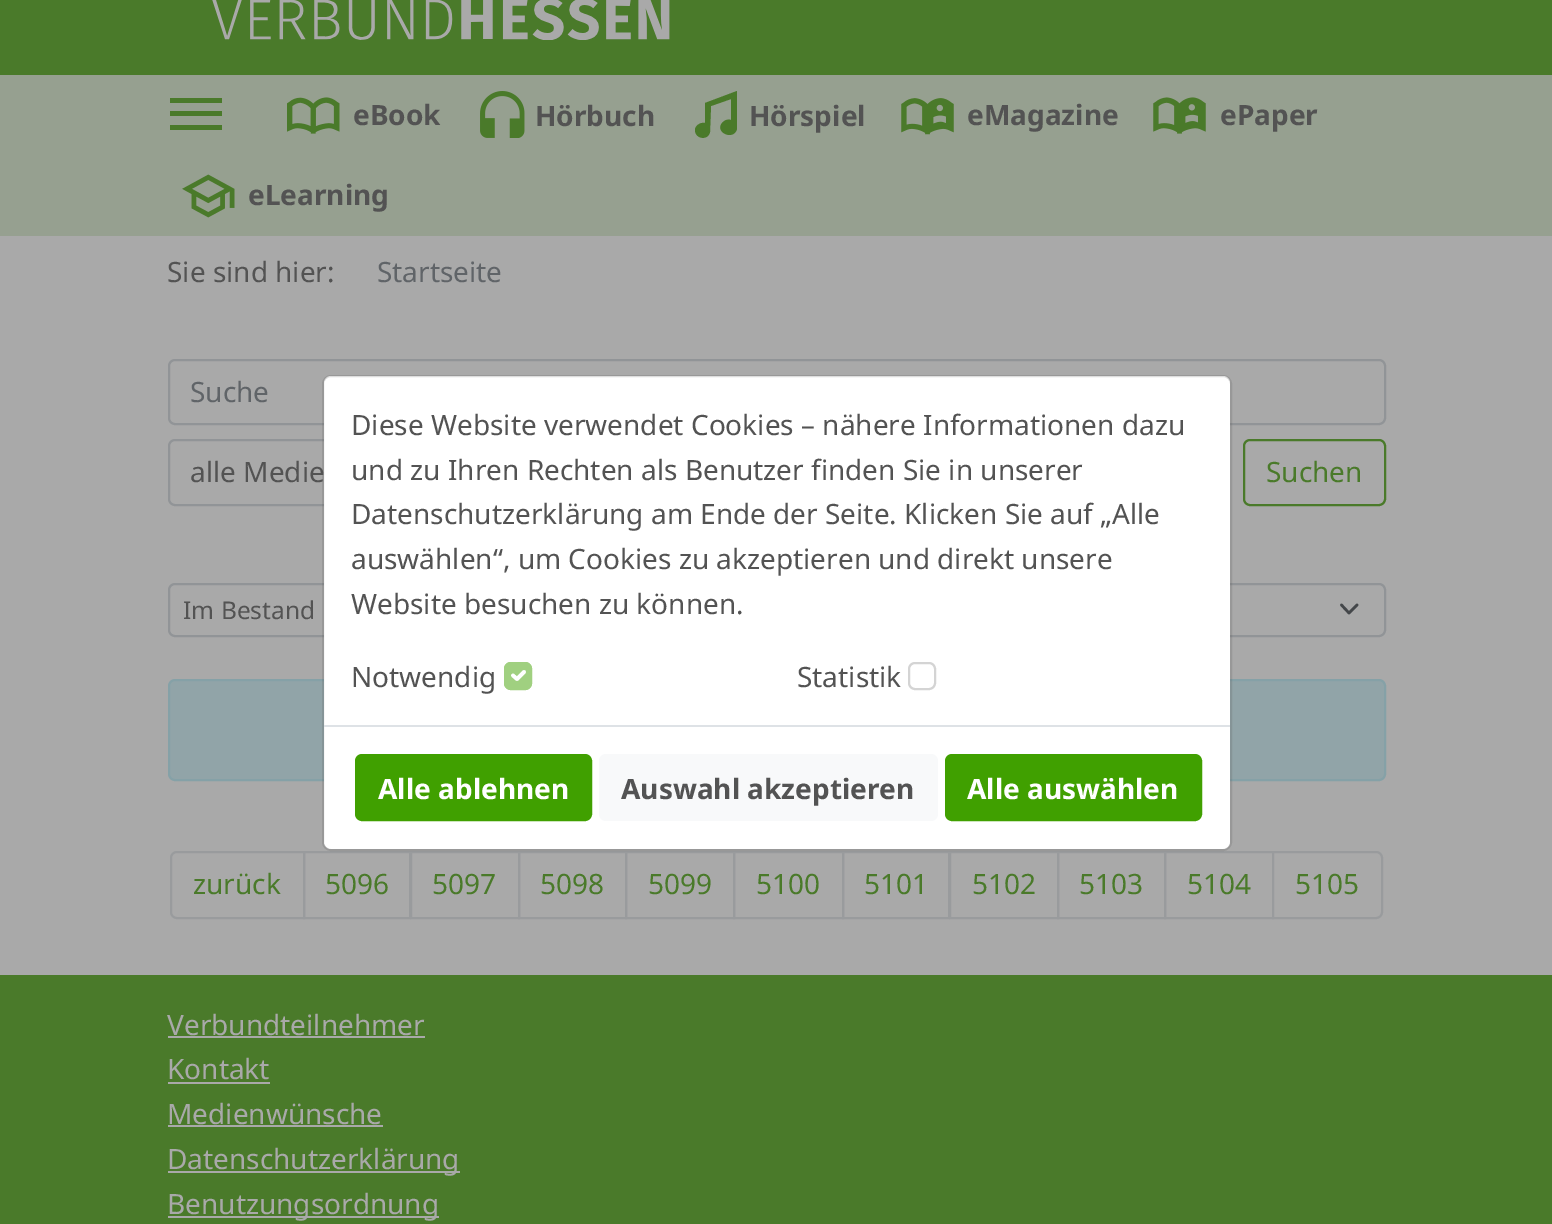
%!PS-Adobe-3.0
%%BoundingBox: 0 0 1552 1224
%%LanguageLevel: 3
%%Pages: 1
%%EndComments
%%BeginProlog
/m { moveto } bind def
/l { lineto } bind def
/c { curveto } bind def
/h { closepath } bind def
/f { fill } bind def
/S { stroke } bind def
/q { gsave } bind def
/Q { grestore } bind def
/w { setlinewidth } bind def
/fn { [ exch dup neg 0 0 3 -1 roll 0 0 ] selectfont } def
/tx { moveto show } def
/bx { rectfill } def
/al { dup .setfillconstantalpha .setstrokeconstantalpha } def
/rr { 5 dict begin { /r /h /w /y /x } { exch def } forall
  x r add y moveto x w add y 2 copy h add r arct x w add y h add x 1 index r arct
  x y h add x y r arct x y 2 copy exch w add exch r arct closepath end } def
/im { 5 dict begin { /h /w /y /x /name } { exch def } forall
  gsave x y translate w h scale
  w h 8 [w 0 0 h 0 0] name (r) file false 3 colorimage grestore end } def
%%EndProlog
%%BeginSetup
<< /PageSize [1552 1224] /PageUsesTransparency true >> setpagedevice
%%EndSetup
%%Page: 1 1
0 .pushpdf14devicefilter
0 1224 translate 1 -1 scale
4 setmiterlimit
0.663 setgray
0 0 1552 1224 bx
0.29 0.478 0.165 setrgbcolor
0 0 1552 75 bx
(image0.raw) 212 0 458 40 im
0.588 0.627 0.565 setrgbcolor
0 75 1552 161 bx
0.29 0.478 0.165 setrgbcolor
170 98 52 5 bx
170 111 52 5 bx
170 125 52 5 bx
(image1.raw) 287 97 53 37 im
/NotoSans-Bold 28 fn
0.325 setgray
(eBook) 353 125 tx
(image2.raw) 480 91 45 47 im
(Hörbuch) 535 126 tx
0.29 0.478 0.165 setrgbcolor
695 130 m 695 126 700 122 705 123 c 705 103 l 737 91 l 737 129 l 733 142 713 131 723 122 c 725 120 728 119 731 120 c 731 99 l 711 106 l 710 132 l 708 141 695 139 695 130 c h f
0.325 setgray
(Hörspiel) 749 126 tx
(image3.raw) 901 98 53 37 im
(eMagazine) 967 125 tx
(image4.raw) 1153 97 53 37 im
(ePaper) 1220 125 tx
(image5.raw) 182 174 53 44 im
(eLearning) 248 205 tx
/NotoSans-Regular 28 fn
(Sie sind hier:) 167 282 tx
0.376 0.392 0.408 setrgbcolor
(Startseite) 377 282 tx
0.569 0.58 0.592 setrgbcolor
2 w
169 360 1216 64 6 rr S
0.376 0.392 0.408 setrgbcolor
(Suche) 190 402 tx
0.569 0.58 0.592 setrgbcolor
169 440 1059 65 6 rr S
0.325 setgray
(alle Medie) 190 482 tx
0.29 0.478 0.165 setrgbcolor
1244 440 141 65 6 rr S
(Suchen) 1266 482 tx
0.569 0.58 0.592 setrgbcolor
169 584 586 52 6 rr S
q
184 592 507 36 rectclip
/NotoSans-Regular 24.5 fn
0.325 setgray
(Im Bestand) 183 619 tx
Q
0.267 0.278 0.29 setrgbcolor
2.6 w
1 setlinecap
1 setlinejoin
1341.5 605 m 1349 613 l 1357 605 l S
0.569 0.58 0.592 setrgbcolor
2 w
0 setlinecap
0 setlinejoin
799 584 586 52 6 rr S
0.569 0.643 0.659 setrgbcolor
169 680 1216 100 6 rr q f Q
0.522 0.631 0.655 setrgbcolor
S
0.6 0.608 0.616 setrgbcolor
177 852 m 304 852 l 304 918 l 177 918 l 173.5 918 171 915.5 171 912 c 171 858 l 171 854.5 173.5 852 177 852 c h S
0.29 0.478 0.165 setrgbcolor
(zurück) 193 894 tx
0.6 0.608 0.616 setrgbcolor
304 852 106 66 rectstroke
0.29 0.478 0.165 setrgbcolor
(5096) 325 894 tx
0.6 0.608 0.616 setrgbcolor
411 852 108 66 rectstroke
0.29 0.478 0.165 setrgbcolor
(5097) 432 894 tx
0.6 0.608 0.616 setrgbcolor
519 852 107 66 rectstroke
0.29 0.478 0.165 setrgbcolor
(5098) 540 894 tx
0.6 0.608 0.616 setrgbcolor
626 852 108 66 rectstroke
0.29 0.478 0.165 setrgbcolor
(5099) 648 894 tx
0.6 0.608 0.616 setrgbcolor
734 852 109 66 rectstroke
0.29 0.478 0.165 setrgbcolor
(5100) 756 894 tx
0.6 0.608 0.616 setrgbcolor
843 852 106 66 rectstroke
0.29 0.478 0.165 setrgbcolor
(5101) 864 894 tx
0.6 0.608 0.616 setrgbcolor
950 852 108 66 rectstroke
0.29 0.478 0.165 setrgbcolor
(5102) 972 894 tx
0.6 0.608 0.616 setrgbcolor
1058 852 107 66 rectstroke
0.29 0.478 0.165 setrgbcolor
(5103) 1079 894 tx
0.6 0.608 0.616 setrgbcolor
1165 852 108 66 rectstroke
0.29 0.478 0.165 setrgbcolor
(5104) 1187 894 tx
0.663 setgray
1273 852 m 1376 852 l 1379.5 852 1382 854.5 1382 858 c 1382 912 l 1382 915.5 1379.5 918 1376 918 c 1273 918 l h q f Q
0.6 0.608 0.616 setrgbcolor
S
0.29 0.478 0.165 setrgbcolor
(5105) 1295 894 tx
1 setgray
324 376 906 473 7 rr f
0.2 al
0.325 setgray
323 376 908 474 8 rr S
1 al
(Diese Website verwendet Cookies – nähere Informationen dazu) 351 435 tx
(und zu Ihren Rechten als Benutzer finden Sie in unserer) 351 480 tx
(Datenschutzerklärung am Ende der Seite. Klicken Sie auf „Alle) 351 524 tx
(auswählen“, um Cookies zu akzeptieren und direkt unsere) 351 569 tx
(Website besuchen zu können.) 351 614 tx
(Notwendig) 351 687 tx
0.627 0.816 0.502 setrgbcolor
504 662 28 28 7 rr f
1 setgray
3.7 w
1 setlinecap
1 setlinejoin
513 675.5 m 517 679 l 524 672 l S
0.627 0.816 0.502 setrgbcolor
2 w
0 setlinecap
0 setlinejoin
505 663 26 26 6 rr S
0.325 setgray
(Statistik) 797 687 tx
0.831 setgray
909 663 26 26 6 rr S
0.871 0.886 0.902 setrgbcolor
324 725 906 2 bx
0.251 0.627 0 setrgbcolor
356 755 235 65 6 rr q f Q
S
/NotoSans-Bold 28 fn
1 setgray
(Alle ablehnen) 378 799 tx
0.973 0.976 0.98 setrgbcolor
599 754 339 67 7 rr f
0.325 setgray
(Auswahl akzeptieren) 621 799 tx
0.251 0.627 0 setrgbcolor
946 755 255 65 6 rr q f Q
S
1 setgray
(Alle auswählen) 967 799 tx
0.29 0.478 0.165 setrgbcolor
0 975 1552 249 bx
/NotoSans-Regular 28 fn
0.663 setgray
(Verbundteilnehmer) 167 1035 tx
168 1036 257 2 bx
(Kontakt) 167 1079 tx
168 1082 102 2 bx
(Medienwünsche) 167 1124 tx
168 1125 215 2 bx
168 1171 292 2 bx
(Datenschutzerklärung) 167 1169 tx
168 1216 271 2 bx
(Benutzungsordnung) 167 1214 tx
.poppdf14devicefilter showpage
%%EOF
